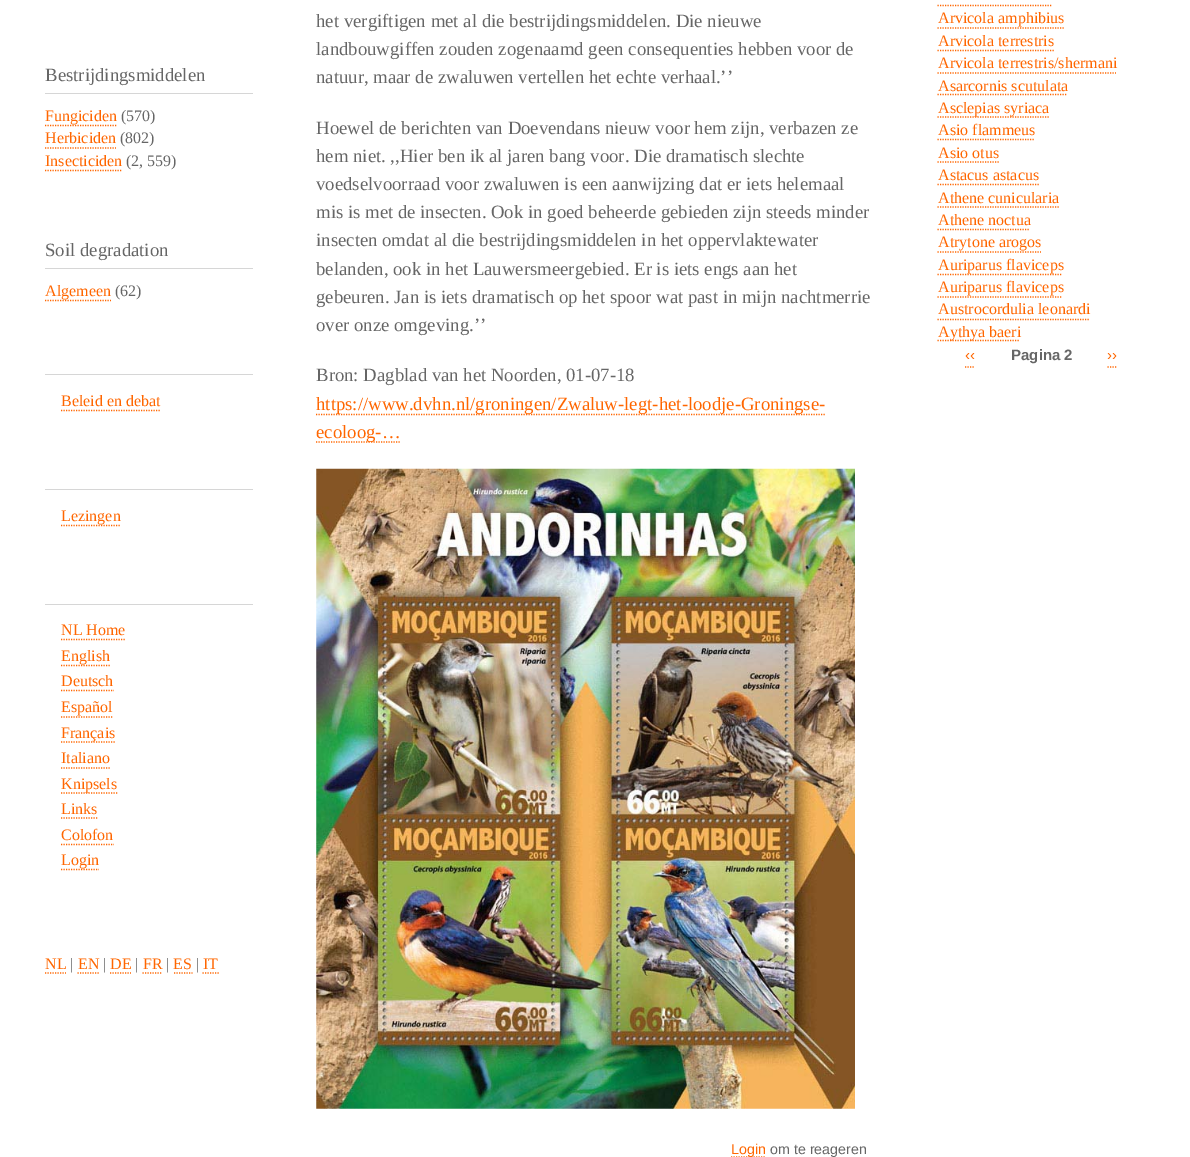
%!PS-Adobe-3.0
%%BoundingBox: 0 0 1190 1157
%%LanguageLevel: 3
%%Pages: 1
%%EndComments
%%BeginProlog
/m { moveto } bind def
/l { lineto } bind def
/S { stroke } bind def
/w { setlinewidth } bind def
/fn { [ exch dup neg 0 0 3 -1 roll 0 0 ] selectfont } def
/tx { moveto show } def
/bx { rectfill } def
/im { 5 dict begin { /h /w /y /x /name } { exch def } forall
  gsave x y translate w h scale
  w h 8 [w 0 0 h 0 0] name (r) file false 3 colorimage grestore end } def
%%EndProlog
%%BeginSetup
<< /PageSize [1190 1157] >> setpagedevice
%%EndSetup
%%Page: 1 1
0 1157 translate 1 -1 scale
4 setmiterlimit
1 setgray
0 0 1190 1157 bx
0.839 setgray
45 93 208 1 bx
/LiberationSerif-Regular 18.75 fn
0.4 setgray
(Bestrijdingsmiddelen) 45 81 tx
1 0.4 0 setrgbcolor
1.2 w
[1.25 1.25] 0 setdash
45 125.5 m 117.5 125.5 l S
/LiberationSerif-Regular 16 fn
(Fungiciden) 45 121 tx
0.4 setgray
(\(570\)) 121 121 tx
1 0.4 0 setrgbcolor
(Herbiciden) 45 143 tx
45 148 m 116 148 l S
0.4 setgray
(\(802\)) 120 143 tx
1 0.4 0 setrgbcolor
(Insecticiden) 45 166 tx
45 170.5 m 122.5 170.5 l S
0.4 setgray
(\(2, 559\)) 126 166 tx
0.839 setgray
45 268 208 1 bx
/LiberationSerif-Regular 18.75 fn
0.4 setgray
(Soil degradation) 45 256 tx
1 0.4 0 setrgbcolor
45 300.5 m 111 300.5 l S
/LiberationSerif-Regular 16 fn
(Algemeen) 45 296 tx
0.4 setgray
(\(62\)) 115 296 tx
0.839 setgray
45 374 208 1 bx
1 0.4 0 setrgbcolor
(Beleid en debat) 61 406 tx
61 410.5 m 160 410.5 l S
0.839 setgray
45 489 208 1 bx
1 0.4 0 setrgbcolor
61 525.5 m 120 525.5 l S
(Lezingen) 61 521 tx
0.839 setgray
45 604 208 1 bx
1 0.4 0 setrgbcolor
(NL Home) 61 635 tx
61 639.5 m 125 639.5 l S
61 665.5 m 110 665.5 l S
(English) 61 661 tx
(Deutsch) 61 686 tx
61 690.5 m 114 690.5 l S
(Español) 61 712 tx
61 717 m 112.5 717 l S
61 742 m 115 742 l S
(Français) 61 738 tx
(Italiano) 61 763 tx
61 768 m 110 768 l S
61 793 m 117.5 793 l S
(Knipsels) 61 789 tx
(Links) 61 814 tx
61 818 m 97.5 818 l S
(Colofon) 61 840 tx
61 844.5 m 114 844.5 l S
61 869.5 m 99 869.5 l S
(Login) 61 865 tx
(NL) 45 969 tx
45 973 m 66 973 l S
0.4 setgray
(|) 70 969 tx
1 0.4 0 setrgbcolor
(EN) 78 969 tx
77.5 973 m 99 973 l S
0.4 setgray
(|) 103 969 tx
1 0.4 0 setrgbcolor
(DE) 110 969 tx
110 973 m 131 973 l S
0.4 setgray
(|) 135 969 tx
1 0.4 0 setrgbcolor
(FR) 143 969 tx
142.5 973 m 162.5 973 l S
0.4 setgray
(|) 166 969 tx
1 0.4 0 setrgbcolor
(ES) 173 969 tx
174 973 m 192.5 973 l S
0.4 setgray
(|) 196 969 tx
1 0.4 0 setrgbcolor
(IT) 203 969 tx
202.5 973 m 219 973 l S
/LiberationSerif-Regular 18.75 fn
0.4 setgray
(het vergiftigen met al die bestrijdingsmiddelen. Die nieuwe) 316 27 tx
(landbouwgiffen zouden zogenaamd geen consequenties hebben voor de) 316 55 tx
(natuur, maar de zwaluwen vertellen het echte verhaal.’’) 316 83 tx
(Hoewel de berichten van Doevendans nieuw voor hem zijn, verbazen ze) 316 134 tx
(hem niet. ,,Hier ben ik al jaren bang voor. Die dramatisch slechte) 316 162 tx
(voedselvoorraad voor zwaluwen is een aanwijzing dat er iets helemaal) 316 190 tx
(mis is met de insecten. Ook in goed beheerde gebieden zijn steeds minder) 316 218 tx
(insecten omdat al die bestrijdingsmiddelen in het oppervlaktewater) 316 246 tx
(belanden, ook in het Lauwersmeergebied. Er is iets engs aan het) 316 275 tx
(gebeuren. Jan is iets dramatisch op het spoor wat past in mijn nachtmerrie) 316 303 tx
(over onze omgeving.’’) 316 331 tx
(Bron: Dagblad van het Noorden, 01-07-18) 316 381 tx
1 0.4 0 setrgbcolor
316 414.5 m 825 414.5 l S
(https://www.dvhn.nl/groningen/Zwaluw-legt-het-loodje-Groningse-) 316 410 tx
316 442 m 400 442 l S
(ecoloog-…) 316 438 tx
(image0.raw) 316 468 539 641 im
731 1157 m 766 1157 l S
/LiberationSans-Regular 14.25 fn
(Login) 731 1154 tx
0.4 setgray
(om te reageren) 770 1154 tx
1 0.4 0 setrgbcolor
937.5 5.5 m 1052.5 5.5 l S
/LiberationSerif-Regular 16 fn
(Arvicola amphibius) 938 23 tx
937.5 28 m 1064 28 l S
(Arvicola terrestris) 938 46 tx
937.5 50.5 m 1054 50.5 l S
(Arvicola terrestris/shermani) 938 68 tx
937.5 73 m 1116 73 l S
(Asarcornis scutulata) 938 91 tx
937.5 94.5 m 1067.5 94.5 l S
937.5 117 m 1049 117 l S
(Asclepias syriaca) 938 113 tx
(Asio flammeus) 938 135 tx
937.5 139.5 m 1035 139.5 l S
(Asio otus) 938 158 tx
937.5 162 m 999 162 l S
(Astacus astacus) 938 180 tx
937.5 184.5 m 1039 184.5 l S
(Athene cunicularia) 938 203 tx
937.5 207 m 1059 207 l S
(Athene noctua) 938 225 tx
937.5 229.5 m 1030 229.5 l S
(Atrytone arogos) 938 247 tx
937.5 252 m 1041 252 l S
937.5 274.5 m 1062.5 274.5 l S
(Auriparus flaviceps) 938 270 tx
(Auriparus flaviceps) 938 292 tx
937.5 297 m 1062.5 297 l S
(Austrocordulia leonardi) 938 314 tx
937.5 319.5 m 1090 319.5 l S
937.5 340.5 m 1020 340.5 l S
(Aythya baeri) 938 337 tx
965 367 m 975 367 l S
/LiberationSans-Regular 15 fn
(‹‹) 965 360 tx
/LiberationSans-Bold 15 fn
0.4 setgray
(Pagina 2) 1011 360 tx
1 0.4 0 setrgbcolor
1107.5 367 m 1117.5 367 l S
/LiberationSans-Regular 15 fn
(››) 1107 360 tx
showpage
%%EOF
